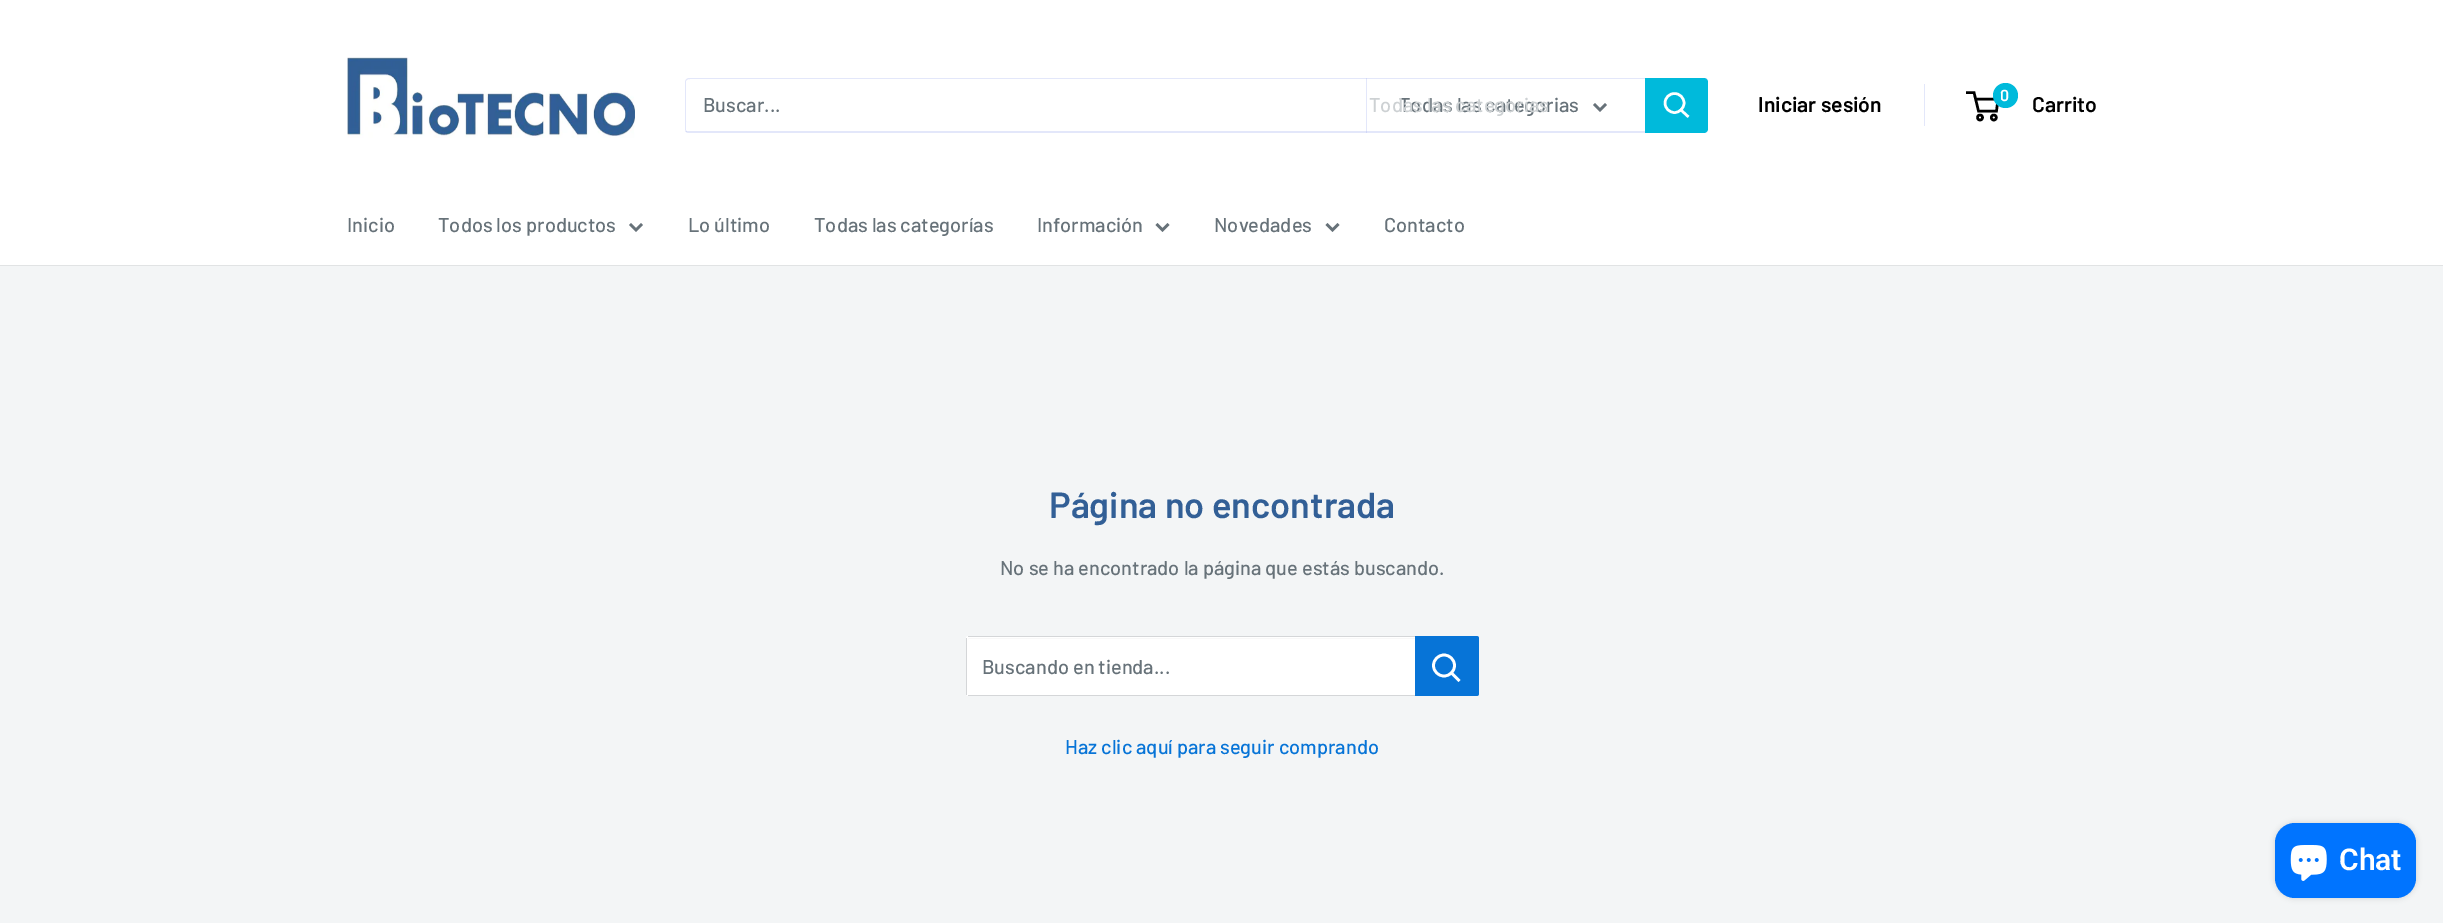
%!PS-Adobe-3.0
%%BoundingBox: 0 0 2443 923
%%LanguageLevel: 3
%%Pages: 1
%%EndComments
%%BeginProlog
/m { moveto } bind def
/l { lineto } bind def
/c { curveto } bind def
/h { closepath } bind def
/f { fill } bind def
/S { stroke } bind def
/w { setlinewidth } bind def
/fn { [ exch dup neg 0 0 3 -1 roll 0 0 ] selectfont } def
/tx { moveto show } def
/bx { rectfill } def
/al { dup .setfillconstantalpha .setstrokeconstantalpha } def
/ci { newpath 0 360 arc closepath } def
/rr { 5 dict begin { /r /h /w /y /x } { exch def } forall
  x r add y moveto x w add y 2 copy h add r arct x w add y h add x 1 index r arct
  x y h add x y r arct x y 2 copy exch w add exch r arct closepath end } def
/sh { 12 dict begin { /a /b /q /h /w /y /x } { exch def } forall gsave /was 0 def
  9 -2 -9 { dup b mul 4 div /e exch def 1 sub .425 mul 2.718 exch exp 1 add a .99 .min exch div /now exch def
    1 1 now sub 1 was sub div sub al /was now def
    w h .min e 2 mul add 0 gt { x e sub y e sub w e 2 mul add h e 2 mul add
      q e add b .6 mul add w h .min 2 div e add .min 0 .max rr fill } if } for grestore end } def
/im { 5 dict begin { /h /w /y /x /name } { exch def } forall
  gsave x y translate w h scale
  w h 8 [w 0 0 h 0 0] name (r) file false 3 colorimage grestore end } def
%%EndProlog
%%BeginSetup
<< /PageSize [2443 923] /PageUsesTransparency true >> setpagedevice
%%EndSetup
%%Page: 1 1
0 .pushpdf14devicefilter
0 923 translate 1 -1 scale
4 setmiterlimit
0.953 0.961 0.965 setrgbcolor
0 0 2443 923 bx
1 setgray
0 0 2443 265 bx
(image0.raw) 347 57 288 81 im
0.89 0.906 0.98 setrgbcolor
685 131 m 686 132 687 133 689 133 c 1704 133 l 1706 133 1708 131 1708 129 c 1708 82 l 1708 80 1707 79 1706 78 c 1706 128 l 1706 130 1705 131 1702 131 c 688 131 l h f
0.3 al
0.639 0.686 0.937 setrgbcolor
690 79 m 1705 79 l 1707 79 l 1706 79 1705 78 1704 78 c 689 78 l 687 78 685 80 685 82 c 685 129 l 685 130 686 132 687 132 c 686 130 l 686 81 l 687 79 689 79 690 79 c h f
/Barlow-Medium 20 fn
1 al
0.404 0.447 0.475 setrgbcolor
(Buscar...) 703 112 tx
0.3 al
0.639 0.686 0.937 setrgbcolor
1366 78 1 55 bx
1 al
0.404 0.447 0.475 setrgbcolor
(Todas las categorias) 1399 112 tx
0.804 0.82 0.827 setrgbcolor
(Todas las categorias) 1369 112 tx
0.404 0.447 0.475 setrgbcolor
2.5 w
2 setlinecap
1605 105 m 1600 110 l 1595 105 l S
0 0.729 0.859 setrgbcolor
1645 78 m 1704 78 l 1706 78 1708 80 1708 82 c 1708 129 l 1708 131 1706 133 1704 133 c 1645 133 l h f
1 setgray
1687.5 116 m 1681 110 l S
0 setlinecap
1674.5 103 9.5 ci S
/Barlow-SemiBold 21.25 fn
0 setgray
(Iniciar sesión) 1758 112 tx
0.89 0.906 0.98 setrgbcolor
1924 84 1 42 bx
0 setgray
1980 117.5 2.5 ci S
1993.8 117.5 2.5 ci S
1975.5 99 m 1998 99 l 1996.5 111 l 1978.5 111 l 1974 92.5 l 1966 92.5 l S
0 0.729 0.859 setrgbcolor
2005.5 95.5 12.5 ci f
/Barlow-SemiBold 16 fn
1 setgray
(0) 2000 101 tx
/Barlow-SemiBold 21.25 fn
0 setgray
(Carrito) 2032 112 tx
0.882 0.89 0.894 setrgbcolor
0 265 2443 1 bx
/Barlow-Medium 20 fn
0.404 0.447 0.475 setrgbcolor
(Inicio) 347 232 tx
(Todos los productos) 438 232 tx
2 setlinecap
641 225 m 636 230 l 631 225 l S
(Lo último) 688 232 tx
(Todas las categorías) 814 232 tx
(Información) 1037 232 tx
1167.5 225 m 1162.5 230 l 1157.5 225 l S
(Novedades) 1214 232 tx
1337.5 225 m 1332.5 230 l 1327.5 225 l S
(Contacto) 1384 232 tx
/Barlow-SemiBold 36.25 fn
0.196 0.373 0.588 setrgbcolor
(Página no encontrada) 1049 518 tx
/Barlow-Medium 20 fn
0.404 0.447 0.475 setrgbcolor
(No se ha encontrado la página que estás buscando.) 1000 575 tx
1 setgray
968.5 636 m 1415 636 l 1415 696 l 968.5 696 l 967 696 966 695 966 693.5 c 966 638.5 l 966 637 967 636 968.5 636 c h f
0.973 setgray
969 639 m 1415 639 l 1415 638 l 969 638 l 968 639 l 968 640 l 968 639 968 639 969 639 c h f
0.831 0.839 0.847 setrgbcolor
968 636 447 1 bx
968 695 447 1 bx
966 638 1 57 bx
0.404 0.447 0.475 setrgbcolor
(Buscando en tienda...) 982 674 tx
0.027 0.455 0.843 setrgbcolor
1415 636 m 1476.5 636 l 1478 636 1479 637 1479 638.5 c 1479 693.5 l 1479 695 1478 696 1476.5 696 c 1415 696 l h f
1 setgray
2.7 w
1458.5 680 m 1451.5 673 l S
0 setlinecap
1444 665.5 10.5 ci S
0.027 0.455 0.843 setrgbcolor
(Haz clic aquí para seguir comprando) 1065 754 tx
0 setgray
2275 823 141 75 20 3 0.15 sh
0 0.455 1 setrgbcolor
2275 823 141 75 20 rr f
(image1.raw) 2290 845 37 36 im
/Roboto-SemiBold 30 fn
1 setgray
(Chat) 2339 870 tx
.poppdf14devicefilter showpage
%%EOF
